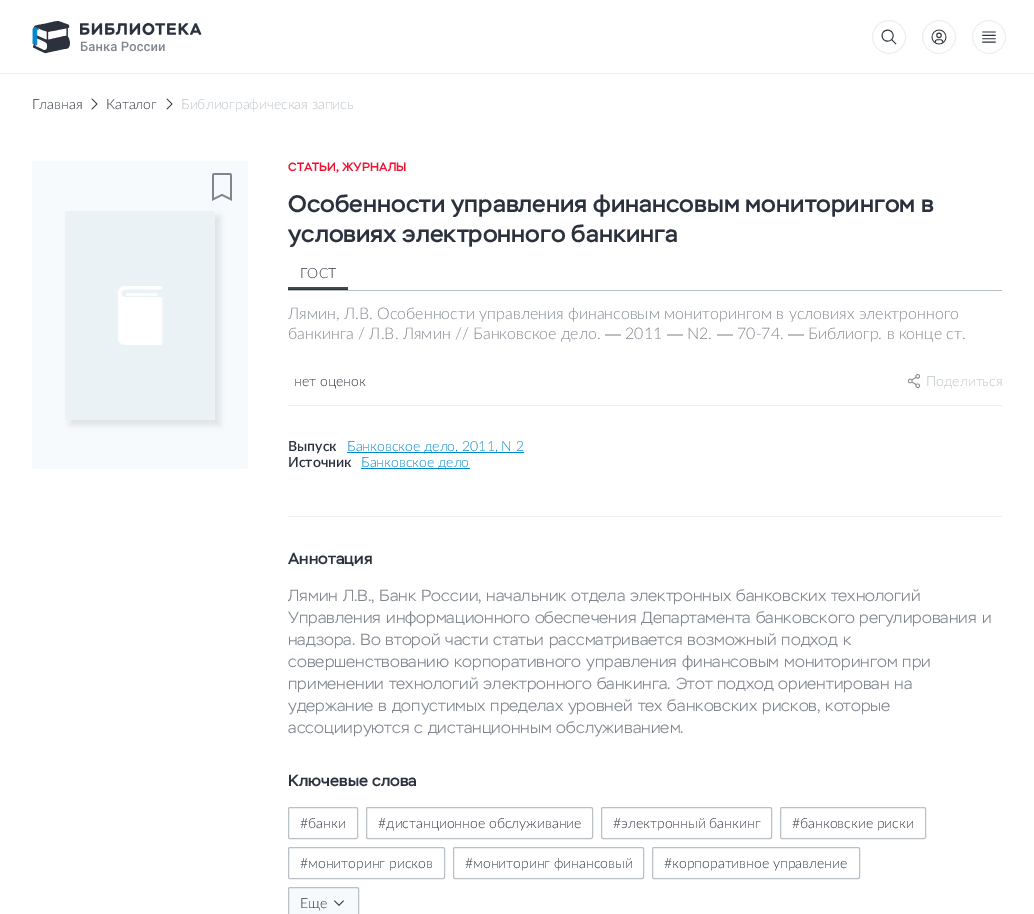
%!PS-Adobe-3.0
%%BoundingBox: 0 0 1034 914
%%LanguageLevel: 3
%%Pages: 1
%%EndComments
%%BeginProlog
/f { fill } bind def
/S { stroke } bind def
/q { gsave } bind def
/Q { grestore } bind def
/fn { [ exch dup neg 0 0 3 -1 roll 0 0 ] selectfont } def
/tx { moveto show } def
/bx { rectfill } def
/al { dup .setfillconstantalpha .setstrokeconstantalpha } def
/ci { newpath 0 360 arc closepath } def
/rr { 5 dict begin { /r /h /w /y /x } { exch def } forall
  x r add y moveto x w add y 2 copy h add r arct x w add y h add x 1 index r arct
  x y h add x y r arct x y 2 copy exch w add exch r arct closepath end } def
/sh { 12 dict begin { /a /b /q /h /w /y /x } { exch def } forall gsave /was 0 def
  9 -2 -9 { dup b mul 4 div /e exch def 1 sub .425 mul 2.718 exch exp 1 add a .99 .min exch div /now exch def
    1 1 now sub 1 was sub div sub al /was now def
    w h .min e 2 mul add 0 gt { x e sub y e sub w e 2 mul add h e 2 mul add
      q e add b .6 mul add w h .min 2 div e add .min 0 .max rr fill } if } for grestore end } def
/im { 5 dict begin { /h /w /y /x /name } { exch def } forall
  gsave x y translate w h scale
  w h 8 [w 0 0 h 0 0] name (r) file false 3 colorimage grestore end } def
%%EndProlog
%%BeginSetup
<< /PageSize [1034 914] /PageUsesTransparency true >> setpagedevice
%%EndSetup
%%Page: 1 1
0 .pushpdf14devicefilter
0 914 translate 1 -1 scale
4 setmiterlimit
1 setgray
0 0 1034 914 bx
0.933 0.937 0.945 setrgbcolor
0 73 1034 1 bx
(image0.raw) 32 21 170 33 im
889 37 16.5 ci S
(image1.raw) 881 29 16 16 im
939 37 16.5 ci S
(image2.raw) 931 29 16 16 im
989 37 16.5 ci S
(image3.raw) 982 31 14 12 im
/Lato-Light 14 fn
0.173 0.196 0.239 setrgbcolor
(Главная) 32 109 tx
(image4.raw) 91 98 7 12 im
(Каталог) 106 109 tx
(image4.raw) 166 98 7 12 im
0.725 0.757 0.78 setrgbcolor
(Библиографическая запись) 181 109 tx
0.965 0.98 0.988 setrgbcolor
32 161 216 308 2 rr f
(image5.raw) 212 173 20 28 im
0.047 0.051 0.149 setrgbcolor
70 216 150 209 0 3 0.1 sh
(image6.raw) 65 211 150 209 im
/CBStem-Medium 12 fn
0.933 0.075 0.2 setrgbcolor
(СТАТЬИ, ЖУРНАЛЫ) 288 171 tx
/CBStem-Medium 24 fn
0.173 0.196 0.239 setrgbcolor
(Особенности управления финансовым мониторингом в) 288 212 tx
(условиях электронного банкинга) 288 242 tx
0.933 0.937 0.945 setrgbcolor
288 405 714 1 bx
0.725 0.757 0.78 setrgbcolor
288 290 714 1 bx
0.173 0.196 0.239 setrgbcolor
288 289 60 1 bx
/Lato-Light 14 fn
(ГОСТ) 300 278 tx
0.267 0.29 0.282 setrgbcolor
288 287 60 2 bx
/Lato-Light 16 fn
0.502 0.522 0.561 setrgbcolor
(Лямин, Л.В. Особенности управления финансовым мониторингом в условиях электронного) 288 319 tx
(банкинга / Л.В. Лямин // Банковское дело.) 288 339 tx
/LiberationSans-Regular 16 fn
(—) 605 339 tx
/Lato-Light 16 fn
(2011) 625 339 tx
/LiberationSans-Regular 16 fn
(—) 667 339 tx
/Lato-Light 16 fn
(N2.) 687 339 tx
/LiberationSans-Regular 16 fn
(—) 717 339 tx
/Lato-Light 16 fn
(70-74.) 737 339 tx
/LiberationSans-Regular 16 fn
(—) 788 339 tx
/Lato-Light 16 fn
(Библиогр. в конце ст.) 808 339 tx
/Lato-Light 14 fn
0.173 0.196 0.239 setrgbcolor
(нет оценок) 294 386 tx
(image7.raw) 907 373 14 16 im
0.725 0.757 0.78 setrgbcolor
(Поделиться) 926 386 tx
0.933 0.937 0.945 setrgbcolor
288 516 714 1 bx
/Lato-SemiBold 14 fn
0.173 0.196 0.239 setrgbcolor
(Выпуск) 288 451 tx
0 0.533 0.8 setrgbcolor
347 452 177 1 bx
/Lato-Light 14 fn
(Банковское дело, 2011, N 2) 347 451 tx
/Lato-SemiBold 14 fn
0.173 0.196 0.239 setrgbcolor
(Источник) 288 467 tx
0 0.533 0.8 setrgbcolor
361 468 109 1 bx
/Lato-Light 14 fn
(Банковское дело) 361 467 tx
/CBStem-Medium 16 fn
0.173 0.196 0.239 setrgbcolor
(Аннотация) 288 564 tx
/CBStem-Light 16 fn
0.502 0.522 0.561 setrgbcolor
(Лямин Л.В., Банк России, начальник отдела электронных банковских технологий) 288 601 tx
(Управления информационного обеспечения Департамента банковского регулирования и) 288 623 tx
(надзора. Во второй части статьи рассматривается возможный подход к) 288 645 tx
(совершенствованию корпоративного управления финансовым мониторингом при) 288 667 tx
(применении технологий электронного банкинга. Этот подход ориентирован на) 288 689 tx
(удержание в допустимых пределах уровней тех банковских рисков, которые) 288 711 tx
(ассоциируются с дистанционным обслуживанием.) 288 733 tx
/CBStem-Medium 16 fn
0.173 0.196 0.239 setrgbcolor
(Ключевые слова) 288 786 tx
0.725 0.757 0.78 setrgbcolor
288.5 807.5 69 31 1.5 rr S
/Lato-Light 14 fn
0.173 0.196 0.239 setrgbcolor
(#банки) 300 828 tx
0.725 0.757 0.78 setrgbcolor
366.5 807.5 226 31 1.5 rr S
0.173 0.196 0.239 setrgbcolor
(#дистанционное обслуживание) 378 828 tx
0.725 0.757 0.78 setrgbcolor
601.5 807.5 170 31 1.5 rr S
0.173 0.196 0.239 setrgbcolor
(#электронный банкинг) 613 828 tx
0.725 0.757 0.78 setrgbcolor
780.5 807.5 145 31 1.5 rr S
0.173 0.196 0.239 setrgbcolor
(#банковские риски) 792 828 tx
0.725 0.757 0.78 setrgbcolor
288.5 847.5 156 31 1.5 rr S
0.173 0.196 0.239 setrgbcolor
(#мониторинг рисков) 300 868 tx
0.725 0.757 0.78 setrgbcolor
453.5 847.5 190 31 1.5 rr S
0.173 0.196 0.239 setrgbcolor
(#мониторинг финансовый) 465 868 tx
0.725 0.757 0.78 setrgbcolor
652.5 847.5 207 31 1.5 rr S
0.173 0.196 0.239 setrgbcolor
(#корпоративное управление) 664 868 tx
0.965 0.98 0.988 setrgbcolor
288.5 887.5 70 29 1.5 rr q f Q
0.725 0.757 0.78 setrgbcolor
S
0.173 0.196 0.239 setrgbcolor
(Еще) 300 908 tx
(image8.raw) 334 900 10 6 im
.poppdf14devicefilter showpage
%%EOF
